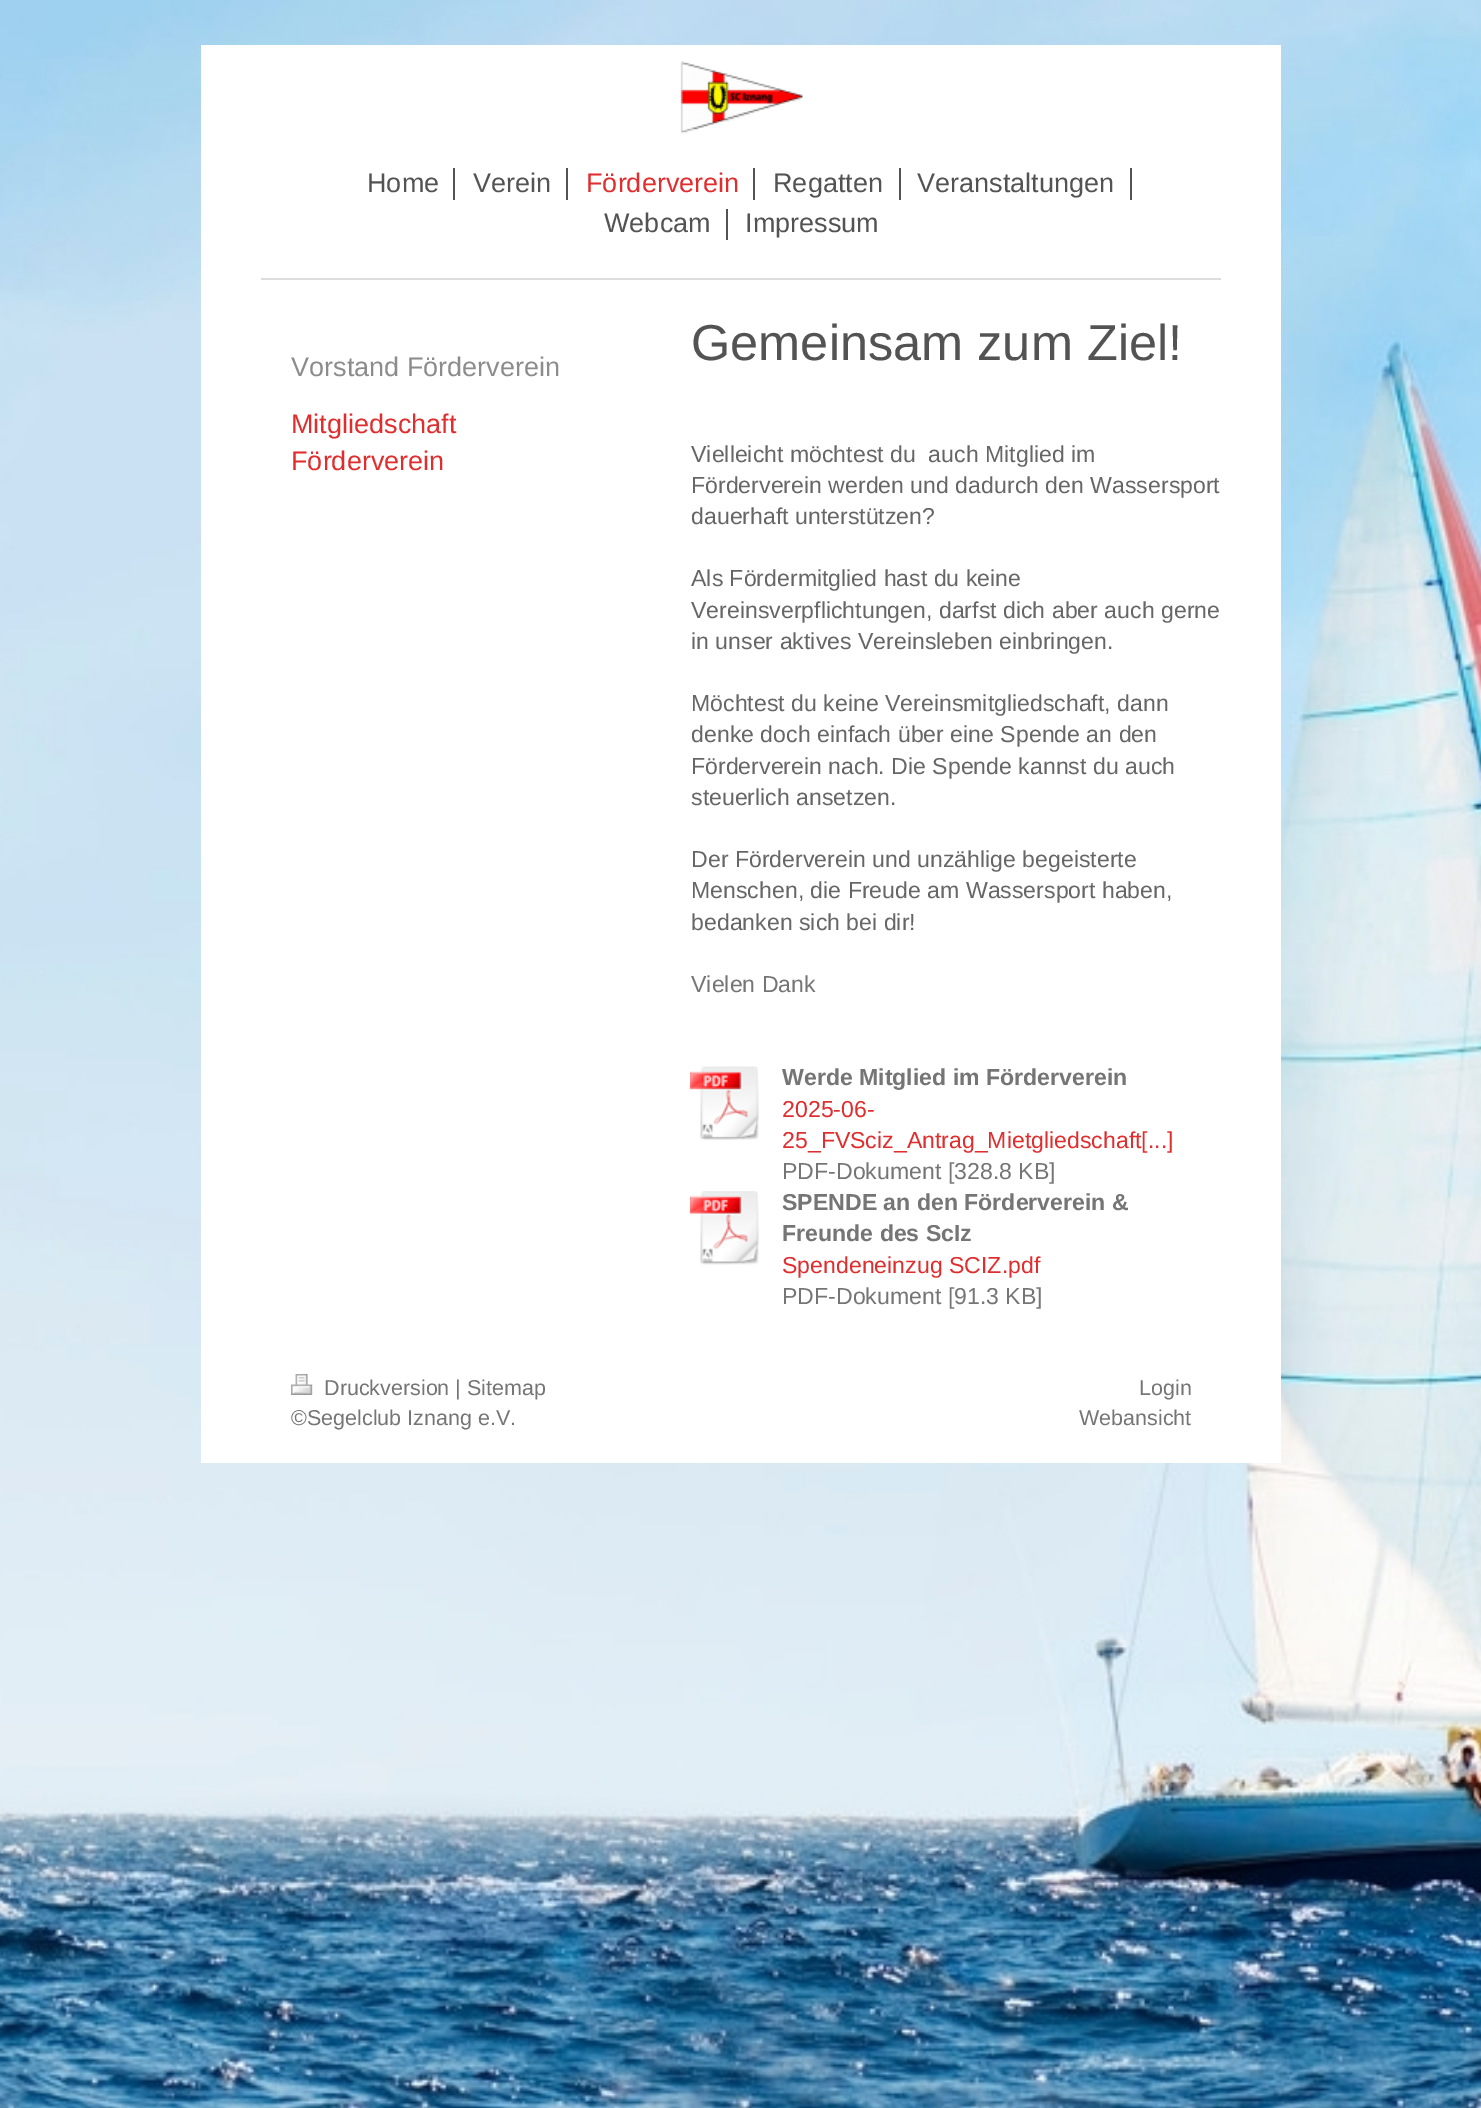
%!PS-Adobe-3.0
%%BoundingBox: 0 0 1481 2108
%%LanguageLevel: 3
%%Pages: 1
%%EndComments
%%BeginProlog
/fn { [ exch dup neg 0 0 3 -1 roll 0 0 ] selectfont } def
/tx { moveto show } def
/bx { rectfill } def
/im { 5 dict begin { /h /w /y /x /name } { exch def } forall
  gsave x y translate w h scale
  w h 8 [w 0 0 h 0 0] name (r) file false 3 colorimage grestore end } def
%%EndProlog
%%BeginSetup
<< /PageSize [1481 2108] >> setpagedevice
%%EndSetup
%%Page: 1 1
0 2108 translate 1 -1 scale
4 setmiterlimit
1 setgray
0 0 1481 2108 bx
(image0.raw) 0 0 1481 2108 im
201 45 1080 1418 bx
(image1.raw) 680 61 123 73 im
0.867 setgray
261 278 960 2 bx
0.325 setgray
453 168 2 32 bx
/LiberationSans-Regular 27 fn
(Home) 367 192 tx
566 168 2 32 bx
(Verein) 473 192 tx
753 168 2 32 bx
0.878 0.176 0.176 setrgbcolor
(Förderverein) 586 192 tx
0.325 setgray
899 168 2 32 bx
(Regatten) 773 192 tx
1130 168 2 32 bx
(Veranstaltungen) 917 192 tx
726 209 2 31 bx
(Webcam) 604 232 tx
(Impressum) 745 232 tx
0.549 setgray
(Vorstand Förderverein) 291 376 tx
0.878 0.176 0.176 setrgbcolor
(Mitgliedschaft) 291 433 tx
(Förderverein) 291 470 tx
/LiberationSans-Regular 50.5 fn
0.325 setgray
(Gemeinsam zum Ziel!) 691 360 tx
/LiberationSans-Regular 23.1 fn
0.4 setgray
(Vielleicht möchtest du  auch Mitglied im) 691 462 tx
(Förderverein werden und dadurch den Wassersport) 691 493 tx
(dauerhaft unterstützen?) 691 524 tx
(Als Fördermitglied hast du keine) 691 586 tx
(Vereinsverpflichtungen, darfst dich aber auch gerne) 691 618 tx
(in unser aktives Vereinsleben einbringen.) 691 649 tx
(Möchtest du keine Vereinsmitgliedschaft, dann) 691 711 tx
(denke doch einfach über eine Spende an den) 691 742 tx
(Förderverein nach. Die Spende kannst du auch) 691 774 tx
(steuerlich ansetzen.) 691 805 tx
(Der Förderverein und unzählige begeisterte) 691 867 tx
(Menschen, die Freude am Wassersport haben,) 691 898 tx
(bedanken sich bei dir!) 691 930 tx
0.459 setgray
(Vielen Dank) 691 992 tx
(image2.raw) 690 1066 69 74 im
/LiberationSans-Bold 23.1 fn
(Werde Mitglied im Förderverein) 782 1085 tx
/LiberationSans-Regular 23.1 fn
0.878 0.176 0.176 setrgbcolor
(2025-06-) 782 1117 tx
(25_FVSciz_Antrag_Mietgliedschaft[...]) 782 1148 tx
0.459 setgray
(PDF-Dokument [328.8 KB]) 782 1179 tx
(image3.raw) 690 1191 69 74 im
/LiberationSans-Bold 23.1 fn
(SPENDE an den Förderverein &) 782 1210 tx
(Freunde des ScIz) 782 1241 tx
/LiberationSans-Regular 23.1 fn
0.878 0.176 0.176 setrgbcolor
(Spendeneinzug SCIZ.pdf) 782 1273 tx
0.459 setgray
(PDF-Dokument [91.3 KB]) 782 1304 tx
(image4.raw) 291 1374 22 21 im
/LiberationSans-Regular 21.5 fn
(Druckversion | Sitemap) 324 1395 tx
(©Segelclub Iznang e.V.) 291 1425 tx
(Login) 1139 1395 tx
(Webansicht) 1079 1425 tx
showpage
%%EOF
